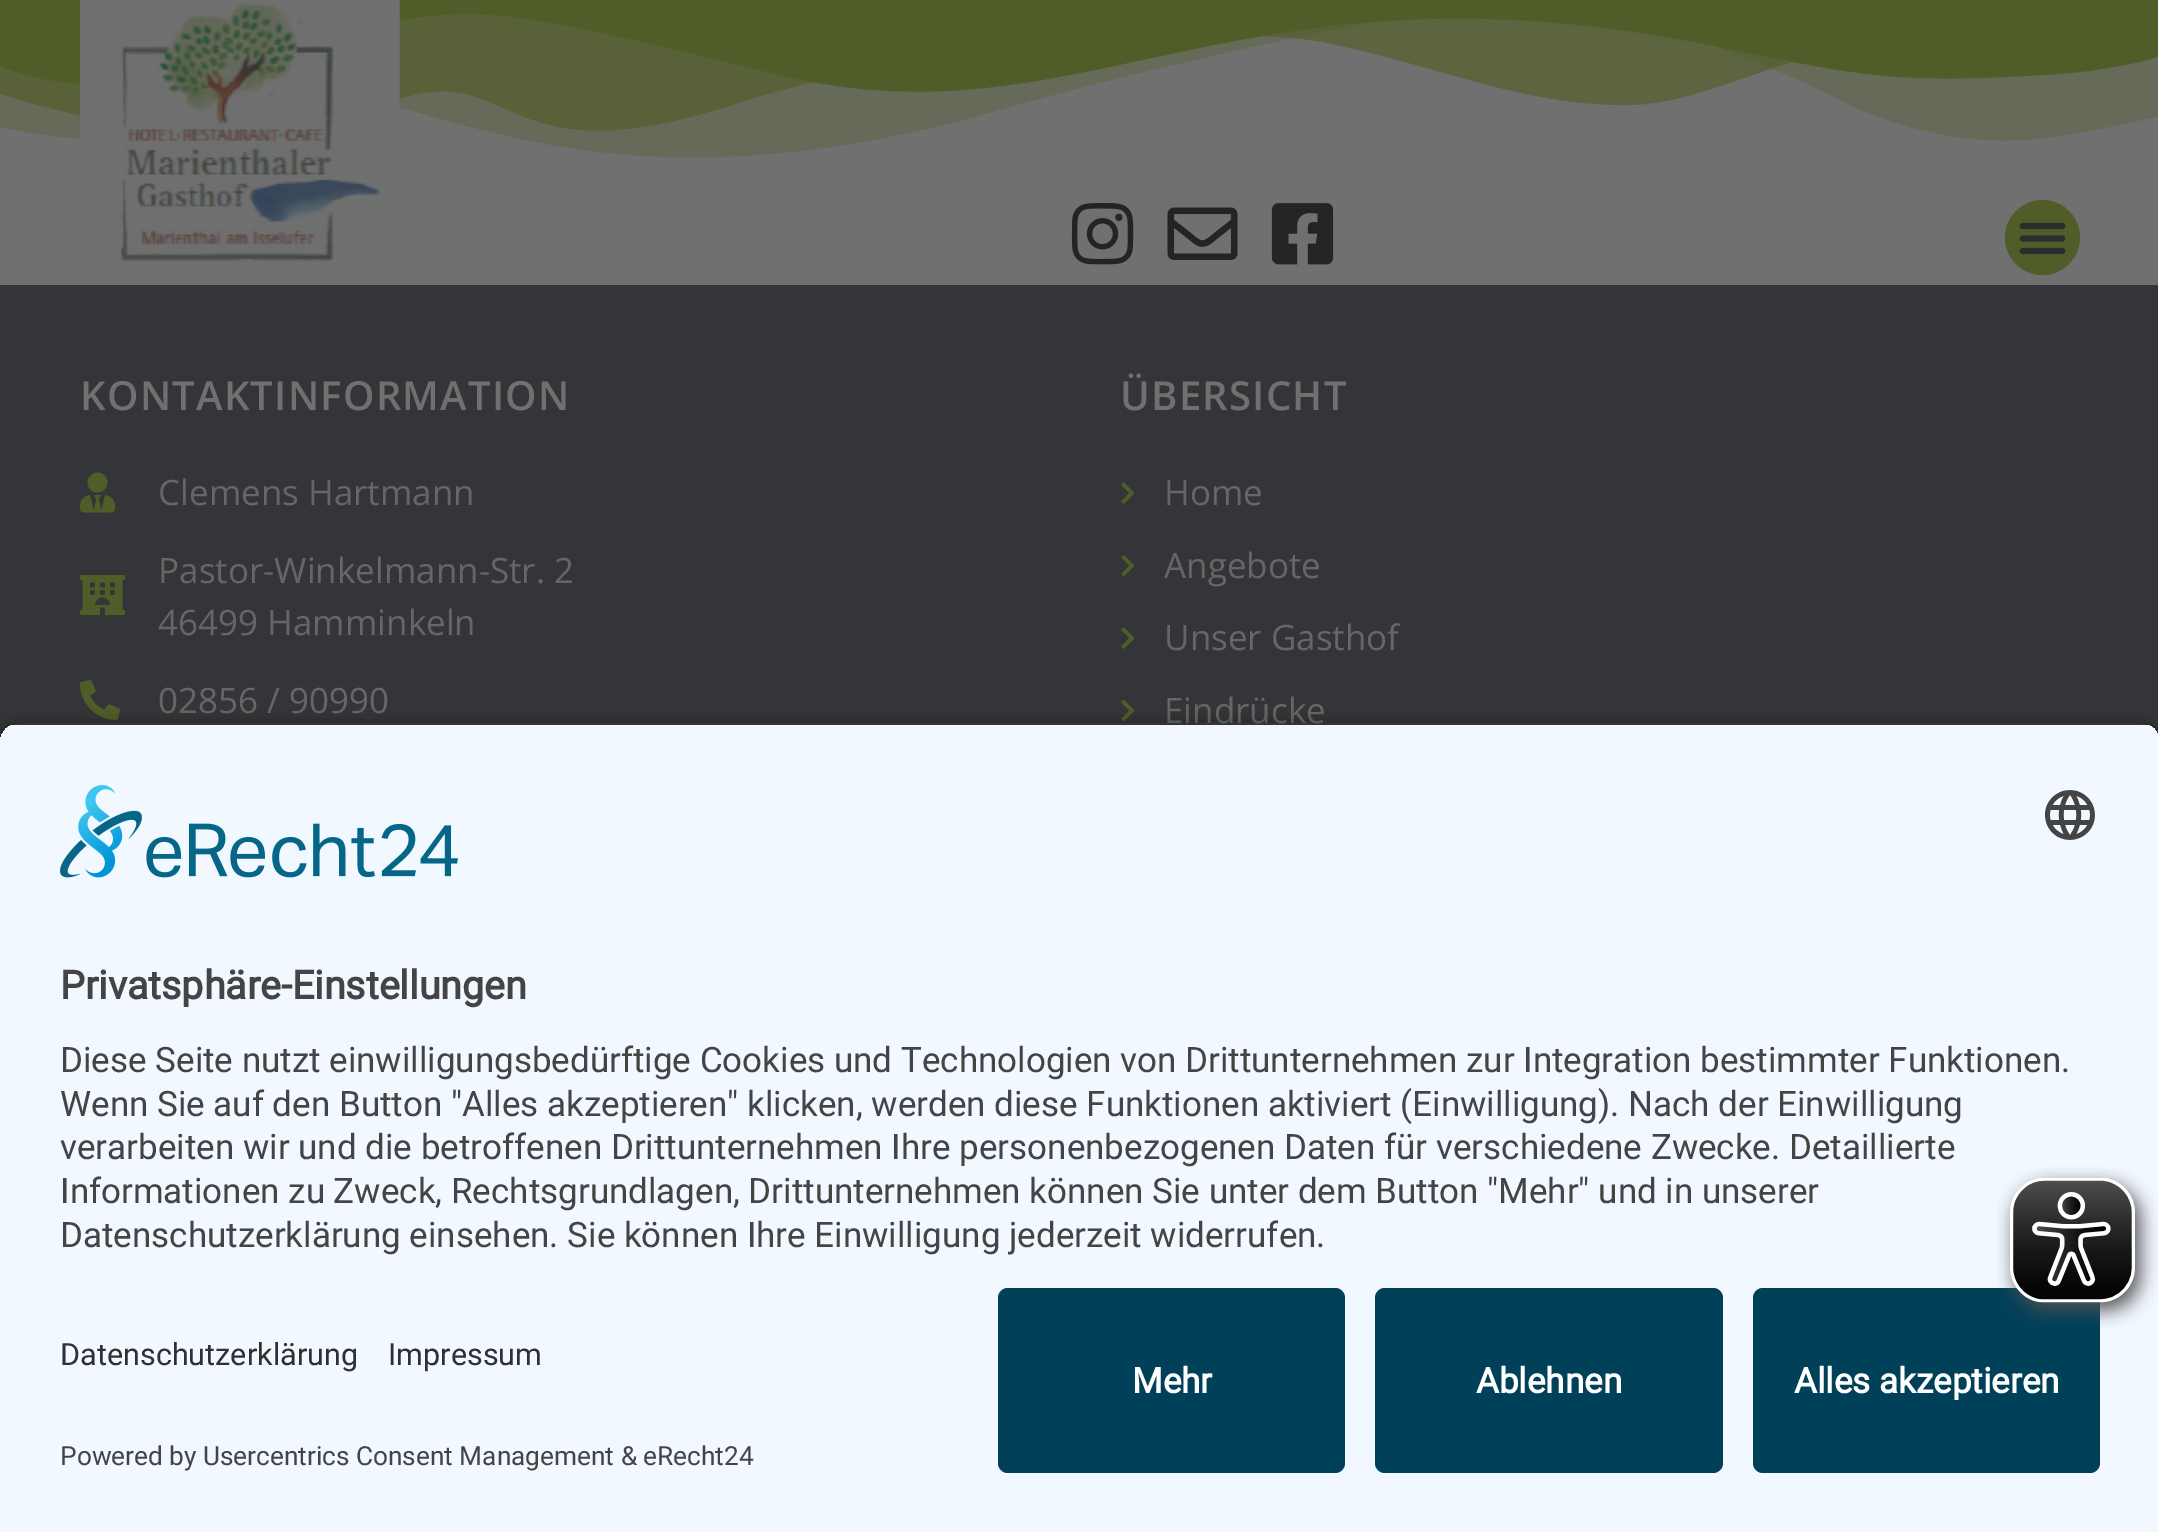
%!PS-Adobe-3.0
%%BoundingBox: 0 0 2158 1532
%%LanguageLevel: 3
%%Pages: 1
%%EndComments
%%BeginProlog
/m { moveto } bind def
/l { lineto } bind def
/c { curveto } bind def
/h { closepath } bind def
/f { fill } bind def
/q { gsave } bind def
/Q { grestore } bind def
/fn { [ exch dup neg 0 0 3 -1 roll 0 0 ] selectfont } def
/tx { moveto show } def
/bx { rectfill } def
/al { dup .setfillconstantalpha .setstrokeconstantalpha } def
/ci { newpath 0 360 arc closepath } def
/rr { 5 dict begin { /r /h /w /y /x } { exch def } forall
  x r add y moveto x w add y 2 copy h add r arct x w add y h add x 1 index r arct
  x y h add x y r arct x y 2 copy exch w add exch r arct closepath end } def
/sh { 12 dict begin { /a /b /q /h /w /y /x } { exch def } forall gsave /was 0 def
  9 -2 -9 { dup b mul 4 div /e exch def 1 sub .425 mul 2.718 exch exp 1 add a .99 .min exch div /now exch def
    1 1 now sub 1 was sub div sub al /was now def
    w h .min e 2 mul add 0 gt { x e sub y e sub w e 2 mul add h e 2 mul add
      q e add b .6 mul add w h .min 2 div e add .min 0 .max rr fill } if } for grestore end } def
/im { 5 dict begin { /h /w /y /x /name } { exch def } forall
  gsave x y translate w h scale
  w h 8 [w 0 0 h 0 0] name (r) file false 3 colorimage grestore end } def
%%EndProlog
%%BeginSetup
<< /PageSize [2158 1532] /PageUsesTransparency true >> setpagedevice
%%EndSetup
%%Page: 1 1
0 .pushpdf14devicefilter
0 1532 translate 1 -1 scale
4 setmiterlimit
0.439 setgray
0 0 2158 1532 bx
(image0.raw) 0 0 2158 158 im
(image1.raw) 80 0 320 270 im
(image2.raw) 1071 203 63 62 im
(image3.raw) 1167 207 71 53 im
(image4.raw) 1271 203 63 62 im
0.318 0.365 0.157 setrgbcolor
2042.5 237.5 37.5 ci f
(image5.raw) 2019 222 47 33 im
0.204 0.208 0.22 setrgbcolor
0 285 2158 458 bx
/OpenSans-SemiBold 40 fn
0.439 setgray
80 410 m 1.25 0 (KONTAKTINFORMATION) ashow
(image6.raw) 80 472 35 41 im
/OpenSans-Regular 35 fn
0.396 0.4 0.4 setrgbcolor
(Clemens Hartmann) 158 505 tx
(image7.raw) 80 575 45 40 im
(Pastor-Winkelmann-Str. 2) 158 583 tx
(46499 Hamminkeln) 158 635 tx
(image8.raw) 80 680 40 40 im
(02856 / 90990) 158 713 tx
/OpenSans-SemiBold 40 fn
0.439 setgray
1120 410 m 1.25 0 (ÜBERSICHT) ashow
(image9.raw) 1121 482 14 22 im
/OpenSans-Regular 35 fn
0.396 0.4 0.4 setrgbcolor
(Home) 1164 505 tx
(image10.raw) 1121 555 14 22 im
(Angebote) 1164 578 tx
(image9.raw) 1121 627 14 22 im
(Unser Gasthof) 1164 650 tx
(image10.raw) 1121 700 14 22 im
(Eindrücke) 1164 723 tx
q
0 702 m 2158 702 l 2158 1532 l 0 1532 l h 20 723 m 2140 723 l 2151 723 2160 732 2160 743 c 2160 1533 l 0 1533 l 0 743 l 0 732 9 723 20 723 c h eoclip newpath
0 setgray
0 730 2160 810 20 9 0.8 sh
Q
q
20 723 m 2140 723 l 2151 723 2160 732 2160 743 c 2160 1268 l 0 1268 l 0 743 l 0 732 9 723 20 723 c h clip newpath
0.945 0.973 1 setrgbcolor
0 725 2158 543 bx
Q
(image11.raw) 60 785 398 93 im
(image12.raw) 2045 790 50 50 im
/Roboto-Bold 39.4 fn
0.267 setgray
(Privatsphäre-Einstellungen) 60 999 tx
/Roboto-Regular 35 fn
(Diese Seite nutzt einwilligungsbedürftige Cookies und Technologien von Drittunternehmen zur Integration bestimmter Funktionen.) 60 1072 tx
(Wenn Sie auf den Button "Alles akzeptieren" klicken, werden diese Funktionen aktiviert \(Einwilligung\). Nach der Einwilligung) 60 1116 tx
(verarbeiten wir und die betroffenen Drittunternehmen Ihre personenbezogenen Daten für verschiedene Zwecke. Detaillierte) 60 1159 tx
(Informationen zu Zweck, Rechtsgrundlagen, Drittunternehmen können Sie unter dem Button "Mehr" und in unserer) 60 1203 tx
(Datenschutzerklärung einsehen. Sie können Ihre Einwilligung jederzeit widerrufen.) 60 1247 tx
0.945 0.973 1 setrgbcolor
0 1268 2158 264 bx
/Roboto-Regular 30.6 fn
0.188 setgray
(Datenschutzerklärung) 60 1365 tx
(Impressum) 388 1365 tx
/Roboto-Regular 26.25 fn
0.267 setgray
(Powered by Usercentrics Consent Management & eRecht24) 60 1465 tx
0 0.251 0.349 setrgbcolor
998 1288 347 185 10 rr f
/Roboto-Bold 35 fn
1 setgray
(Mehr) 1132 1393 tx
0 0.251 0.349 setrgbcolor
1375 1288 348 185 10 rr f
1 setgray
(Ablehnen) 1476 1393 tx
0 0.251 0.349 setrgbcolor
1753 1288 347 185 10 rr f
1 setgray
(Alles akzeptieren) 1794 1393 tx
(image13.raw) 1997 1167 161 161 im
.poppdf14devicefilter showpage
%%EOF
